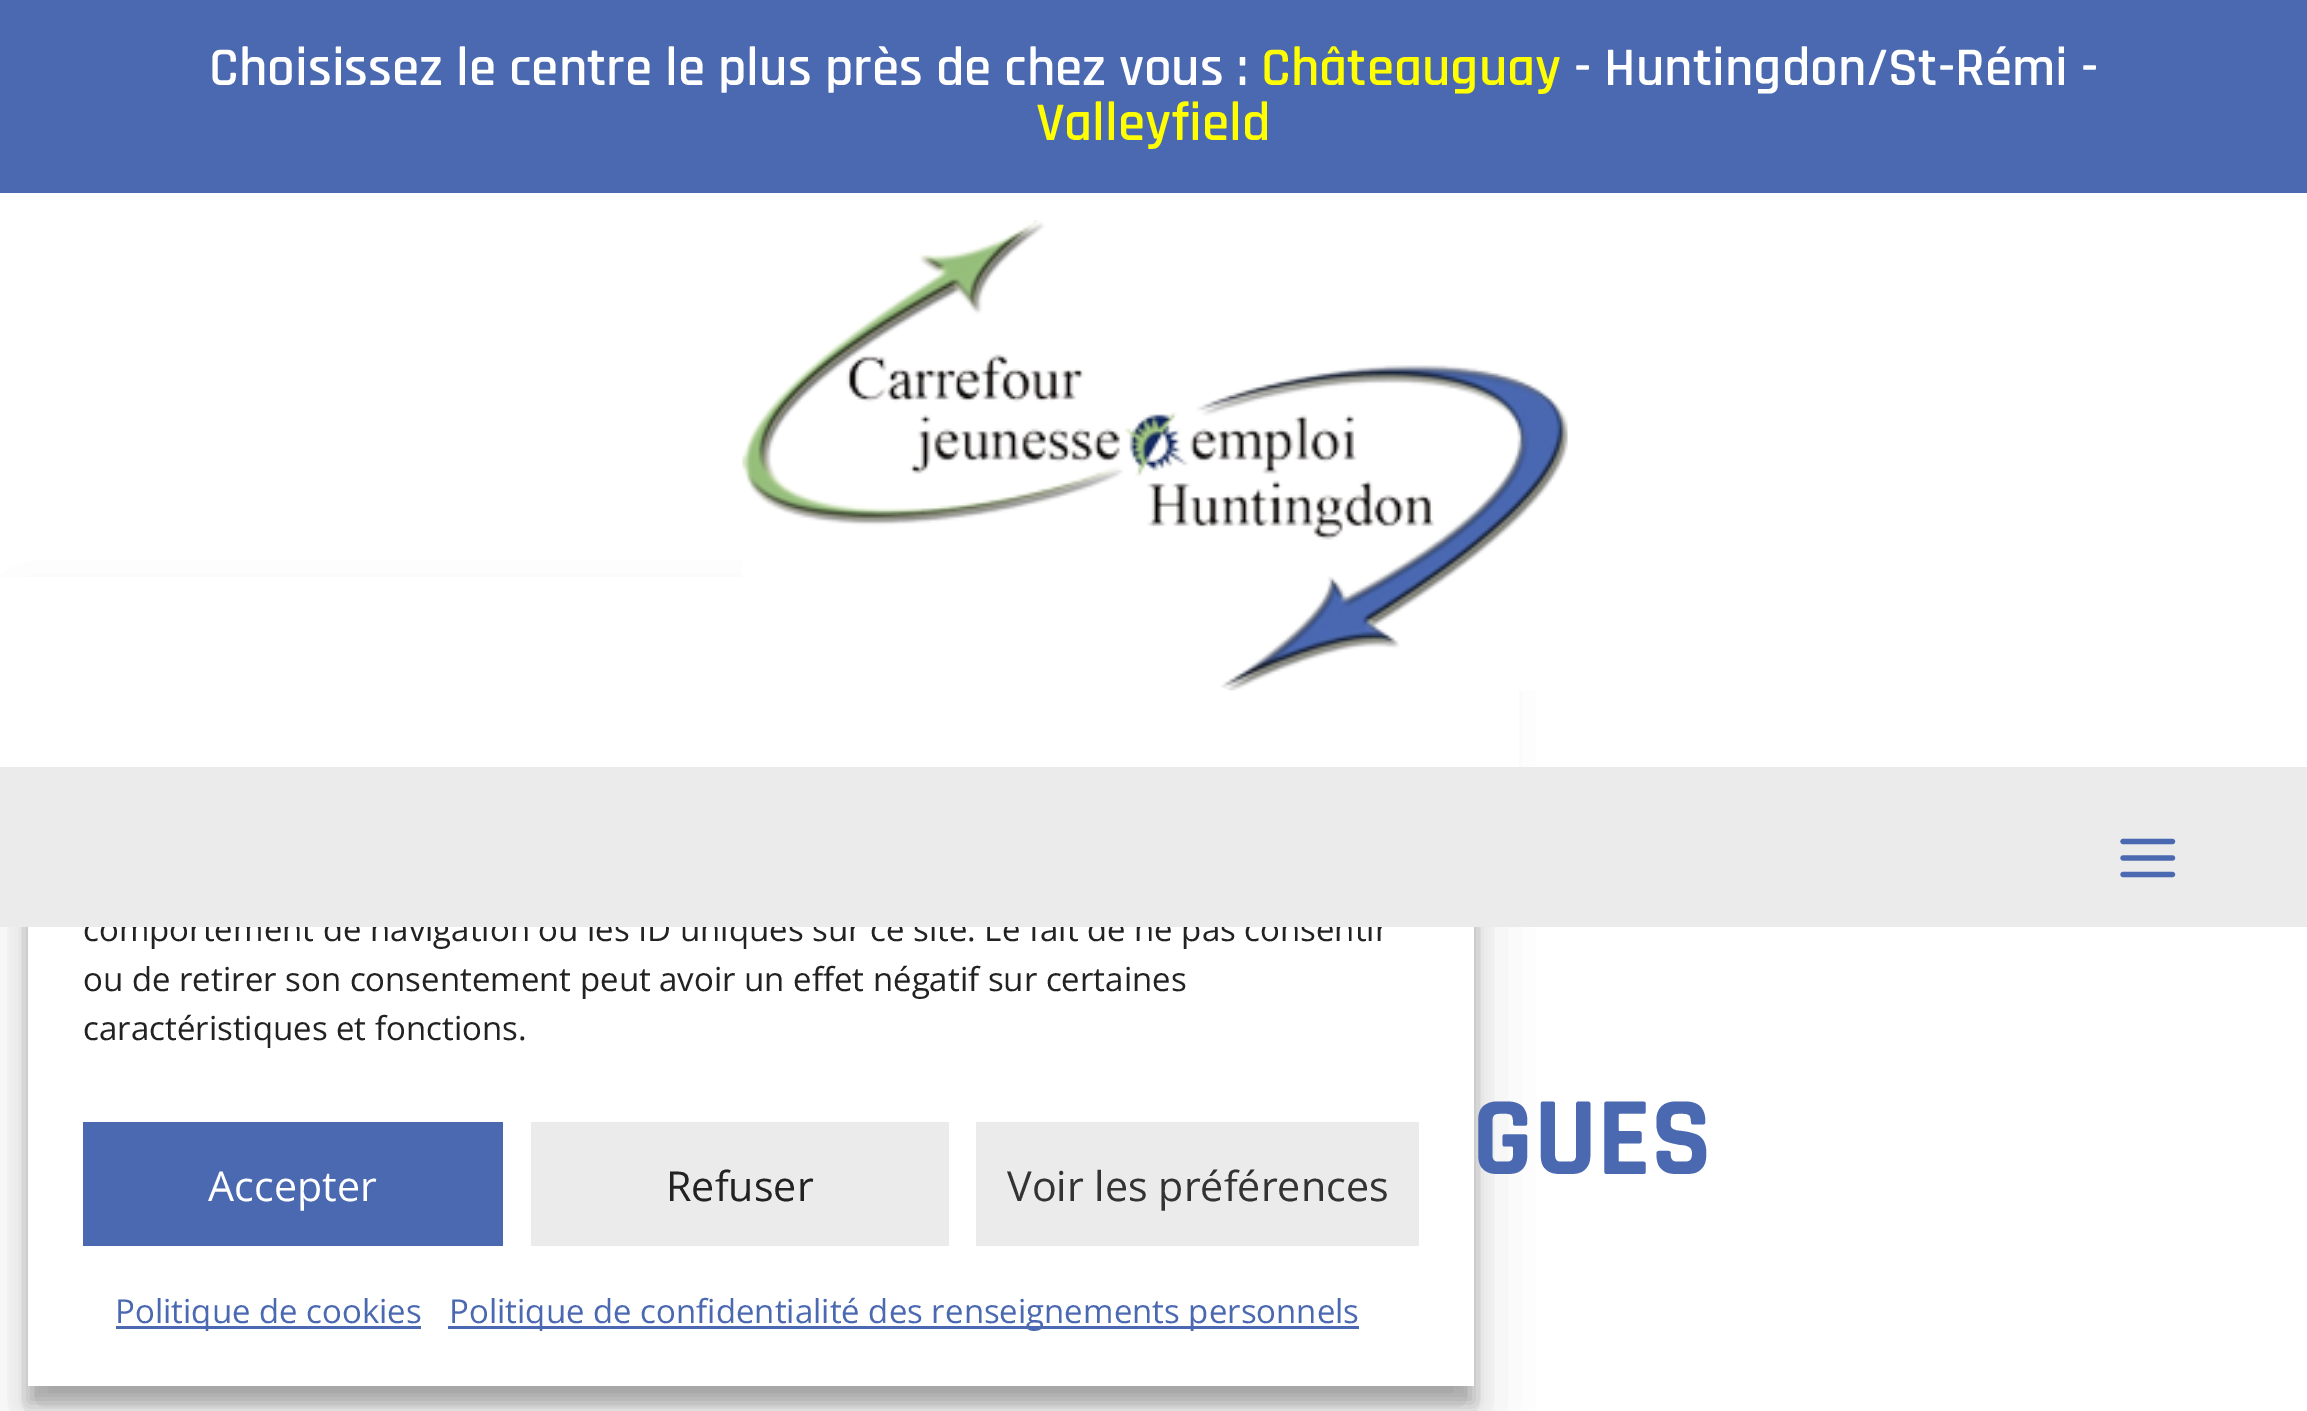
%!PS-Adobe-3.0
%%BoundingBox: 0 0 2307 1411
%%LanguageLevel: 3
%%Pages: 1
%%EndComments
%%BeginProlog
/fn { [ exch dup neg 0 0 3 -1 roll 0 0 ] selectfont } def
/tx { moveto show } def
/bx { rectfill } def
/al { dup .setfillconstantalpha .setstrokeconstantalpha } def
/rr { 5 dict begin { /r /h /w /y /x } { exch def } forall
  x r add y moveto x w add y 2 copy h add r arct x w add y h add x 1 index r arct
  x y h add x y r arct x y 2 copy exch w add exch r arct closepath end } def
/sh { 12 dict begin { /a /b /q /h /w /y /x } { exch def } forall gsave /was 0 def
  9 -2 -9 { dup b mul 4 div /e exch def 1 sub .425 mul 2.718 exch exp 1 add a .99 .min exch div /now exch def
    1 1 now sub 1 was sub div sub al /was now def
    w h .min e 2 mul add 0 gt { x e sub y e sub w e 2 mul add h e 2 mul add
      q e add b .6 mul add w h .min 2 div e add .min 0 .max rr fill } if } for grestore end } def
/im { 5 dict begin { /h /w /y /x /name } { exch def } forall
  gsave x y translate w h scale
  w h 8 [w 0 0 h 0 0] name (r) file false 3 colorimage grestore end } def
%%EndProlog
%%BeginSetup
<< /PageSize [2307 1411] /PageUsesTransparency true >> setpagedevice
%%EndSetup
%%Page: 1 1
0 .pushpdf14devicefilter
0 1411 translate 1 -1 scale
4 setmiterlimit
1 setgray
0 0 2307 1411 bx
0.294 0.412 0.694 setrgbcolor
0 0 2307 193 bx
/Rajdhani-SemiBold 55 fn
1 setgray
(Choisissez le centre le plus près de chez vous :) 209 85 tx
1 1 0 setrgbcolor
(Châteauguay) 1261 85 tx
1 setgray
(- Huntingdon/St-Rémi -) 1574 85 tx
1 1 0 setrgbcolor
(Valleyfield) 1036 140 tx
0 setgray
28 611 1446 792 0 8 0.23 sh
28 622 1446 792 0 27.5 0.19 sh
1 setgray
0 577 1519 190 bx
(image0.raw) 742 220 826 471 im
28 927 1446 459 bx
/OpenSans-Regular 33 fn
0.133 setgray
(comportement de navigation ou les ID uniques sur ce site. Le fait de ne pas consentir) 83 941 tx
0.922 setgray
0 767 2307 160 bx
(image1.raw) 2120 838 56 40 im
/Rajdhani-Bold 113 fn
0.294 0.412 0.694 setrgbcolor
(GUES) 1472 1174 tx
/OpenSans-Regular 33 fn
0.133 setgray
(ou de retirer son consentement peut avoir un effet négatif sur certaines) 83 991 tx
(caractéristiques et fonctions.) 83 1040 tx
0.294 0.412 0.694 setrgbcolor
83 1122 420 124 bx
/OpenSans-Regular 41.25 fn
1 setgray
(Accepter) 208 1201 tx
0.922 setgray
531 1122 418 124 bx
0.133 setgray
(Refuser) 666 1201 tx
0.922 setgray
976 1122 443 124 bx
0.2 setgray
(Voir les préférences) 1007 1201 tx
0.294 0.412 0.694 setrgbcolor
116 1326 305 3 bx
/OpenSans-Regular 33 fn
(Politique de cookies) 115 1323 tx
448 1326 911 3 bx
(Politique de confidentialité des renseignements personnels) 449 1323 tx
.poppdf14devicefilter showpage
%%EOF
